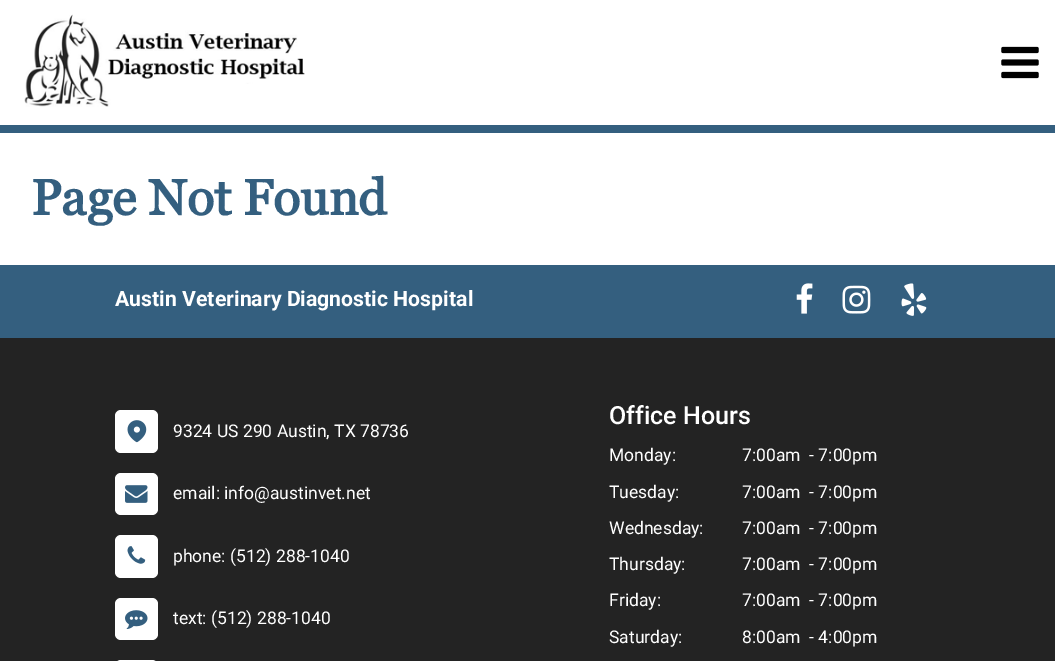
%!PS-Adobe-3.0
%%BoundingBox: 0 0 1055 661
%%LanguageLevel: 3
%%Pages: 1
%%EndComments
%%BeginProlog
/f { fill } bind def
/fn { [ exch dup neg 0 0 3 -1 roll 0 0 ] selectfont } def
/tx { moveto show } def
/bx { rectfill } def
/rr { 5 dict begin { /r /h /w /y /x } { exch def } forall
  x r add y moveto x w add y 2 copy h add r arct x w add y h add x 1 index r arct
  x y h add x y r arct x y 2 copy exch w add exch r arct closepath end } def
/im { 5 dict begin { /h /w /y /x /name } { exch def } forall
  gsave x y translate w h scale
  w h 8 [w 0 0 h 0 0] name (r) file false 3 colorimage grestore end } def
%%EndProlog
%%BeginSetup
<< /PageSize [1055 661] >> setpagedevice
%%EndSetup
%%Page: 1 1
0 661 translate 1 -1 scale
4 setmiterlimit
1 setgray
0 0 1055 661 bx
0.204 0.373 0.498 setrgbcolor
0 125 1055 8 bx
(image0.raw) 24 14 281 93 im
(image1.raw) 1001 46 38 33 im
/Georgia-Bold 50 fn
(Page Not Found) 31 215 tx
0 265 1055 73 bx
/Roboto-Bold 21.25 fn
1 setgray
(Austin Veterinary Diagnostic Hospital) 115 306 tx
(image2.raw) 796 283 17 31 im
(image3.raw) 842 285 29 29 im
(image4.raw) 901 283 26 33 im
0.137 setgray
0 338 1055 323 bx
1 setgray
115 410 43 43 6 rr f
(image5.raw) 127 420 20 23 im
/Roboto-Regular 17.5 fn
(9324 US 290 Austin, TX 78736) 173 437 tx
115 473 43 42 6 rr f
(image6.raw) 125 485 23 18 im
(email: info@austinvet.net) 173 499 tx
115 535 43 43 6 rr f
(image7.raw) 127 546 19 18 im
(phone: \(512\) 288-1040) 173 562 tx
115 598 43 42 6 rr f
(image8.raw) 125 610 23 19 im
(text: \(512\) 288-1040) 173 624 tx
115 660 43 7 6 rr f
/Roboto-Medium 25 fn
(Office Hours) 609 424 tx
/Roboto-Regular 17.5 fn
(Monday:) 609 461 tx
(7:00am  - 7:00pm) 742 461 tx
(Tuesday:) 609 498 tx
(7:00am  - 7:00pm) 742 498 tx
(Wednesday:) 609 534 tx
(7:00am  - 7:00pm) 742 534 tx
(Thursday:) 609 570 tx
(7:00am  - 7:00pm) 742 570 tx
(Friday:) 609 606 tx
(7:00am  - 7:00pm) 742 606 tx
(Saturday:) 609 643 tx
(8:00am  - 4:00pm) 742 643 tx
showpage
%%EOF
